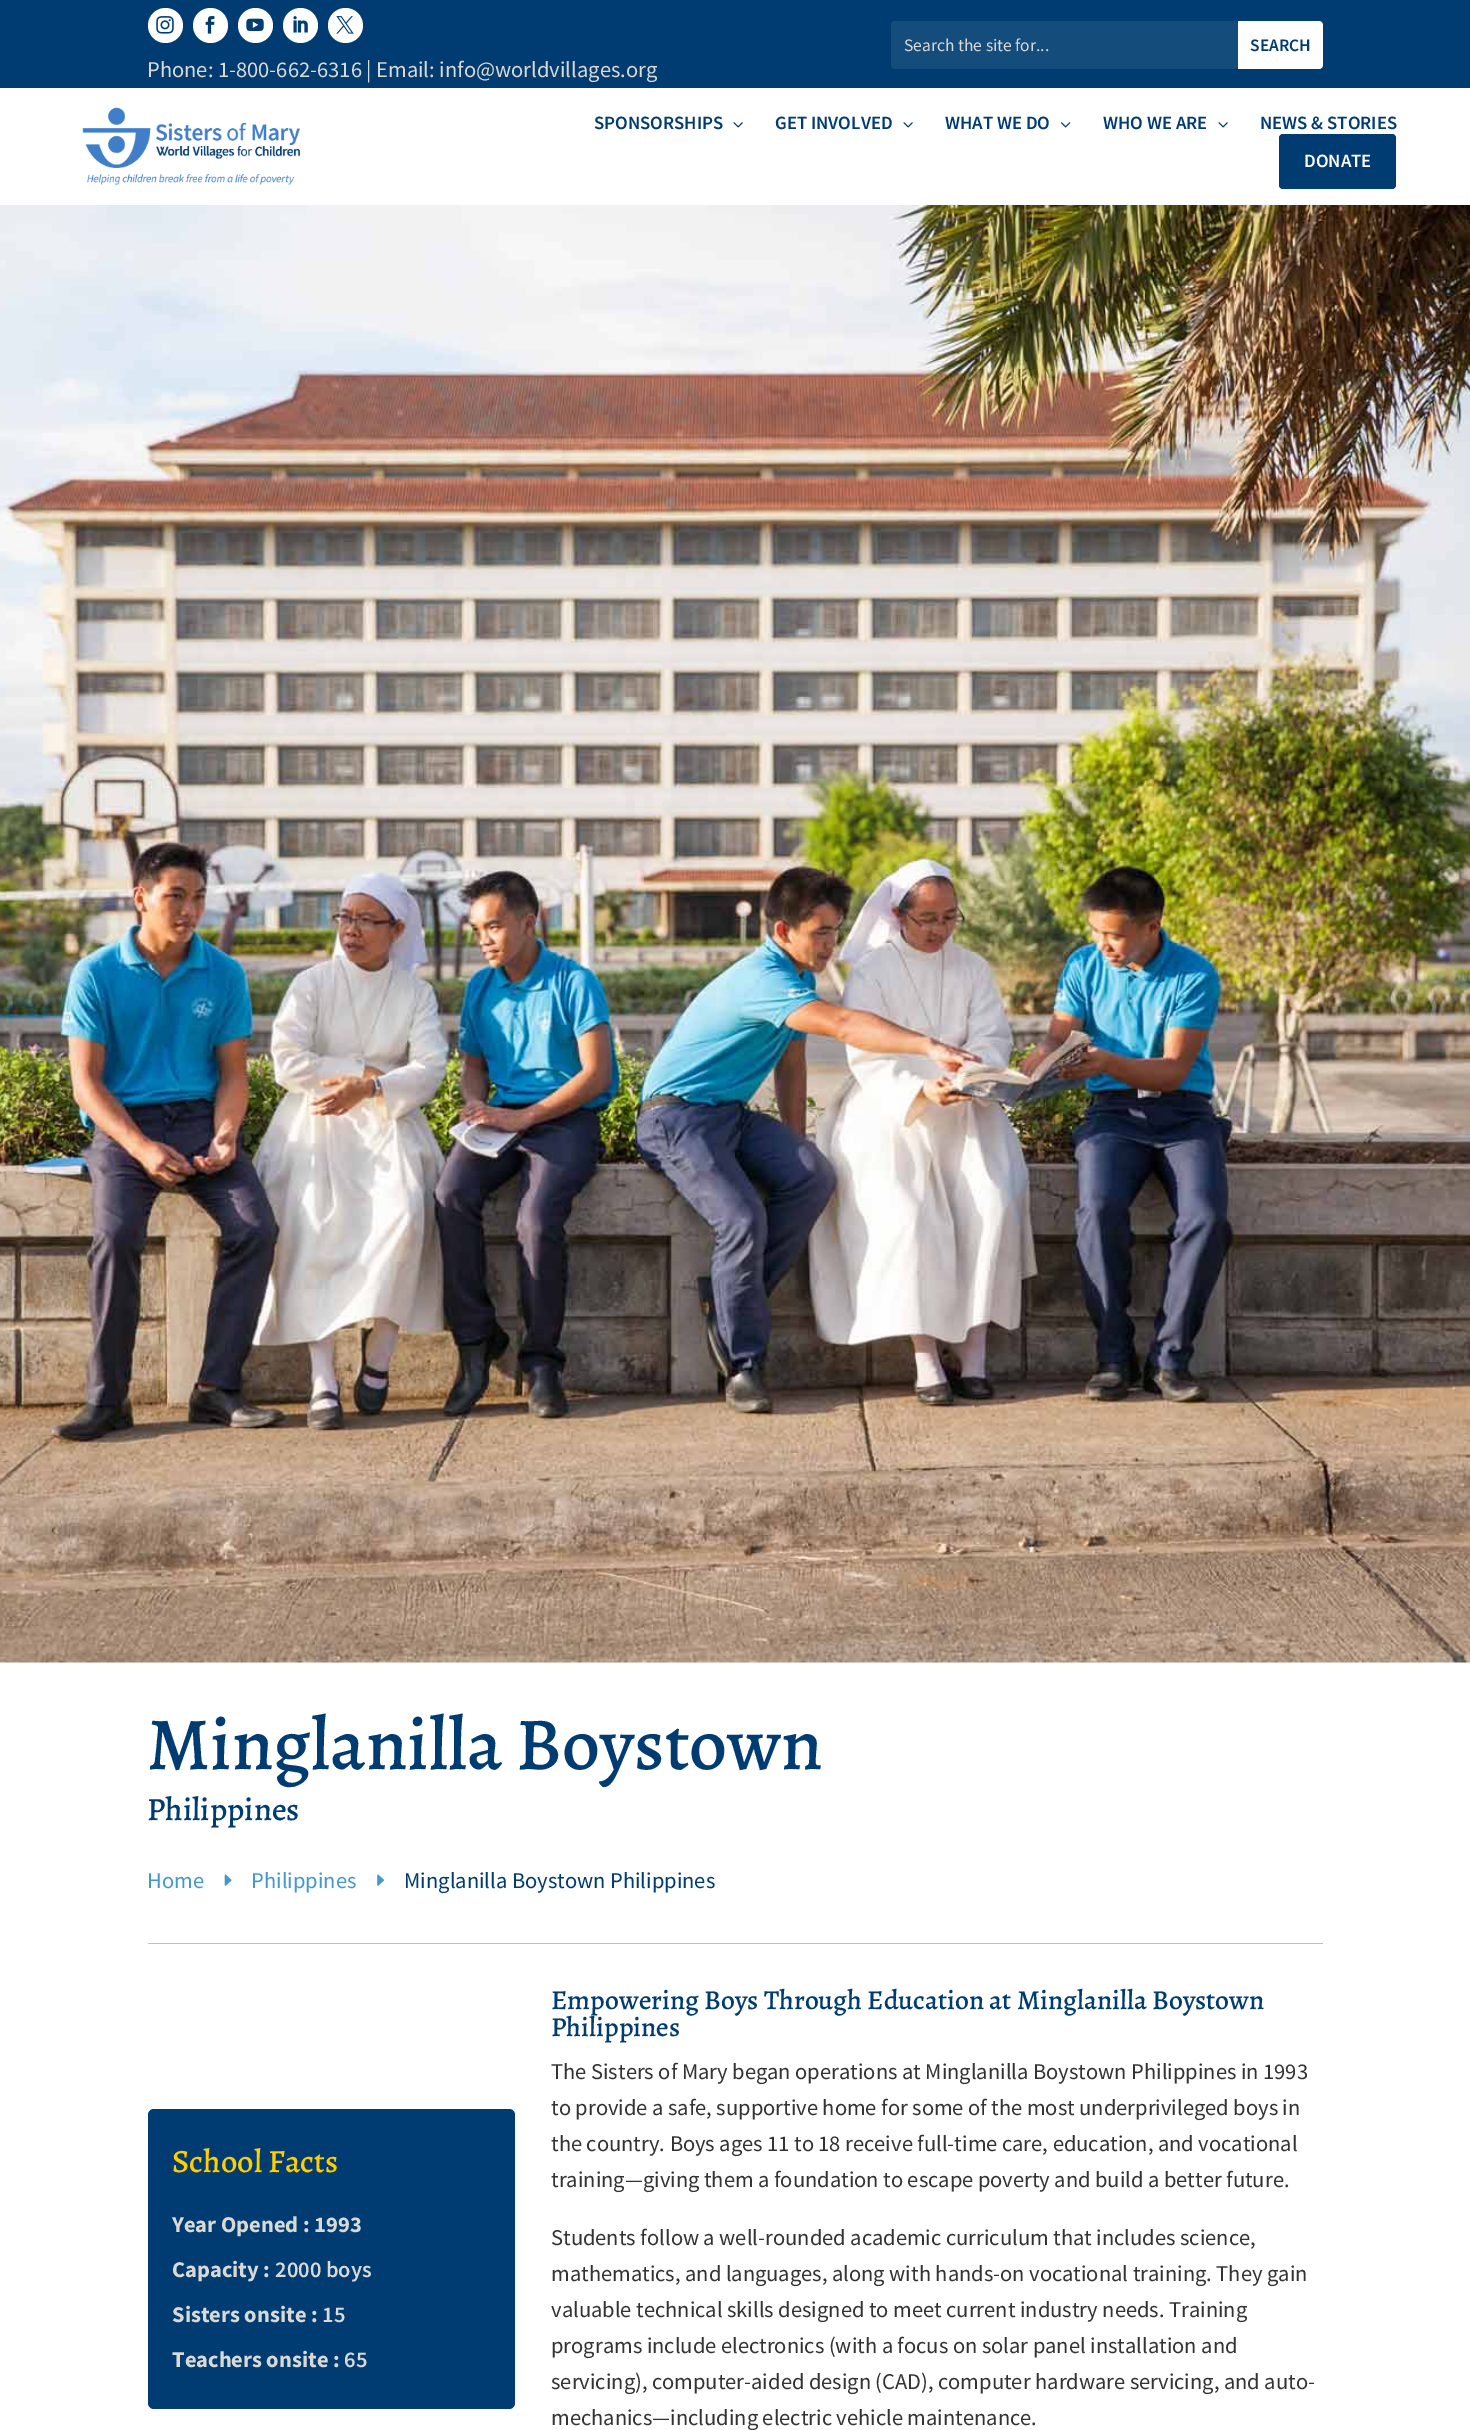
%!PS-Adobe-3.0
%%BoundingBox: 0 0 1470 2430
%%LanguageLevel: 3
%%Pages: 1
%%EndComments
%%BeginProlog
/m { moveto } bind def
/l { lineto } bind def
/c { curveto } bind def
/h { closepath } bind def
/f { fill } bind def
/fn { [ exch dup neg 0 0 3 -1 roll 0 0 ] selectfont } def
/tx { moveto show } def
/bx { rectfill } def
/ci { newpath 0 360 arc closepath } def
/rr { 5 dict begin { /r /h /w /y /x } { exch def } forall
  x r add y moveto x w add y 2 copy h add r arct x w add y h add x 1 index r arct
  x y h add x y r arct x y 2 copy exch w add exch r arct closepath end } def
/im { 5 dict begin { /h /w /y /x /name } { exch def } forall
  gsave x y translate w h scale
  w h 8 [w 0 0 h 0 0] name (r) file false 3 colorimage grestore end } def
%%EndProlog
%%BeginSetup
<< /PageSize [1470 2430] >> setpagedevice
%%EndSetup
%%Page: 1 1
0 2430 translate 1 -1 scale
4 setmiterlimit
1 setgray
0 0 1470 2430 bx
0 0.235 0.443 setrgbcolor
0 0 1470 88 bx
0.078 0.298 0.486 setrgbcolor
891 21 347 48 4 rr f
/SourceSansPro-Regular 17.5 fn
0.851 0.851 0.839 setrgbcolor
(Search the site for...) 904 51 tx
1 setgray
1238 21 m 1319 21 l 1321 21 1323 23 1323 25 c 1323 65 l 1323 67 1321 69 1319 69 c 1238 69 l h f
/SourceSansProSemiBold-SemiBold 17.5 fn
0 0.235 0.443 setrgbcolor
(SEARCH) 1250 51 tx
1 setgray
165.5 25.5 17.5 ci f
(image0.raw) 156 16 18 18 im
210.5 25.5 17.5 ci f
(image1.raw) 205 16 10 18 im
255.5 25.5 17.5 ci f
(image2.raw) 246 18 18 14 im
300.5 25.5 17.5 ci f
(image3.raw) 293 16 15 17 im
345.5 25.5 17.5 ci f
(image4.raw) 336 16 18 18 im
/SourceSansPro-Regular 22.5 fn
0.851 0.851 0.839 setrgbcolor
(Phone: 1-800-662-6316 | Email: info@worldvillages.org) 147 77 tx
(image5.raw) 82 107 218 78 im
/SourceSansProSemiBold-SemiBold 18.75 fn
0 0.235 0.443 setrgbcolor
(SPONSORSHIPS) 594 129 tx
(image6.raw) 733 122 10 6 im
(GET INVOLVED) 775 129 tx
(image6.raw) 903 122 10 6 im
(WHAT WE DO) 945 129 tx
(image7.raw) 1061 122 10 6 im
(WHO WE ARE) 1103 129 tx
(image6.raw) 1218 122 10 6 im
(NEWS & STORIES) 1260 129 tx
1279 134 117 55 4 rr f
1 setgray
(DONATE) 1304 167 tx
(image8.raw) 0 205 1470 1458 im
/Alegreya-Medium 75 fn
0 0.235 0.443 setrgbcolor
(Minglanilla Boystown) 147 1769 tx
/Alegreya-Medium 32.5 fn
(Philippines) 147 1820 tx
/SourceSansPro-Regular 22.5 fn
0.275 0.596 0.792 setrgbcolor
(Home) 147 1888 tx
(image9.raw) 224 1874 8 12 im
(Philippines) 251 1888 tx
(image10.raw) 377 1874 8 12 im
0 0.235 0.443 setrgbcolor
(Minglanilla Boystown Philippines) 404 1888 tx
0.643 0.784 0.882 setrgbcolor
148 1943 1175 1 bx
0 0.235 0.443 setrgbcolor
148 2109 367 300 6 rr f
/Alegreya-Medium 32.5 fn
1 0.804 0 setrgbcolor
(School Facts) 172 2172 tx
/SourceSansPro-Bold 22.5 fn
0.851 0.851 0.839 setrgbcolor
(Year Opened : 1993) 172 2232 tx
(Capacity :) 172 2277 tx
/SourceSansProSemiBold-SemiBold 22.5 fn
(2000 boys) 275 2277 tx
/SourceSansPro-Bold 22.5 fn
(Sisters onsite :) 172 2322 tx
/SourceSansProSemiBold-SemiBold 22.5 fn
(15) 322 2322 tx
/SourceSansPro-Bold 22.5 fn
(Teachers onsite :) 172 2367 tx
/SourceSansProSemiBold-SemiBold 22.5 fn
(65) 344 2367 tx
/Alegreya-Medium 27.5 fn
0 0.235 0.443 setrgbcolor
(Empowering Boys Through Education at Minglanilla Boystown) 551 2009 tx
(Philippines) 551 2036 tx
/SourceSansPro-Regular 22.5 fn
0.2 setgray
(The Sisters of Mary began operations at Minglanilla Boystown Philippines in 1993) 551 2079 tx
(to provide a safe, supportive home for some of the most underprivileged boys in) 551 2115 tx
(the country. Boys ages 11 to 18 receive full-time care, education, and vocational) 551 2151 tx
(training—giving them a foundation to escape poverty and build a better future.) 551 2187 tx
(Students follow a well-rounded academic curriculum that includes science,) 551 2245 tx
(mathematics, and languages, along with hands-on vocational training. They gain) 551 2281 tx
(valuable technical skills designed to meet current industry needs. Training) 551 2317 tx
(programs include electronics \(with a focus on solar panel installation and) 551 2353 tx
(servicing\), computer-aided design \(CAD\), computer hardware servicing, and auto-) 551 2389 tx
(mechanics—including electric vehicle maintenance.) 551 2425 tx
showpage
%%EOF
